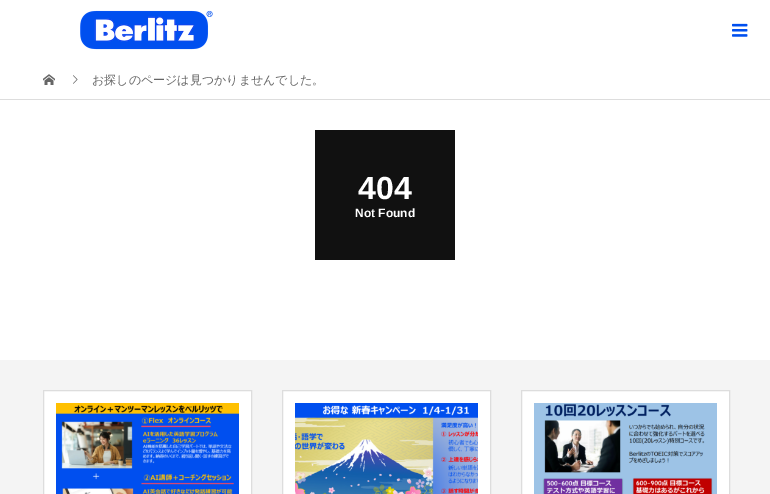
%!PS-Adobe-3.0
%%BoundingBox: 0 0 770 494
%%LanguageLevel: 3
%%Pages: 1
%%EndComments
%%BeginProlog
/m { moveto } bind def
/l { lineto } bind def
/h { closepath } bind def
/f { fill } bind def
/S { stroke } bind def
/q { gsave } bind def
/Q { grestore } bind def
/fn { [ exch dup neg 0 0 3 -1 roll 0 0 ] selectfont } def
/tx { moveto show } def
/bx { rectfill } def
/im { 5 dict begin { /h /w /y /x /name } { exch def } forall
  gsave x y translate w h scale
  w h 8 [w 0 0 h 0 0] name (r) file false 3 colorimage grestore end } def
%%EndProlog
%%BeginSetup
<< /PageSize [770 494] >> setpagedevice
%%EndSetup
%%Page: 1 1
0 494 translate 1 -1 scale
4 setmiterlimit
1 setgray
0 0 770 494 bx
(image0.raw) 80 10 133 40 im
(image1.raw) 732 23 16 14 im
0.867 setgray
0 99 770 1 bx
(image2.raw) 43 74 12 11 im
(image3.raw) 73 75 5 9 im
/WenQuanYiZenHei-Medium 12 fn
0.4 setgray
(お探しのページは見つかりませんでした。) 92 84 tx
0.067 setgray
315 130 140 130 bx
/LiberationSans-Bold 32 fn
1 setgray
(404) 358 199 tx
/LiberationSans-Bold 12 fn
(Not Found) 355 217 tx
0.957 setgray
0 360 770 134 bx
1 setgray
43.5 390.5 m 251.5 390.5 l 251.5 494.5 l 43.5 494.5 l h q f Q
0.867 setgray
S
(image4.raw) 56 403 183 91 im
1 setgray
282.5 390.5 m 490.5 390.5 l 490.5 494.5 l 282.5 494.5 l h q f Q
0.867 setgray
S
(image5.raw) 295 403 183 91 im
1 setgray
521.5 390.5 m 729.5 390.5 l 729.5 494.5 l 521.5 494.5 l h q f Q
0.867 setgray
S
(image6.raw) 534 403 183 91 im
showpage
%%EOF
